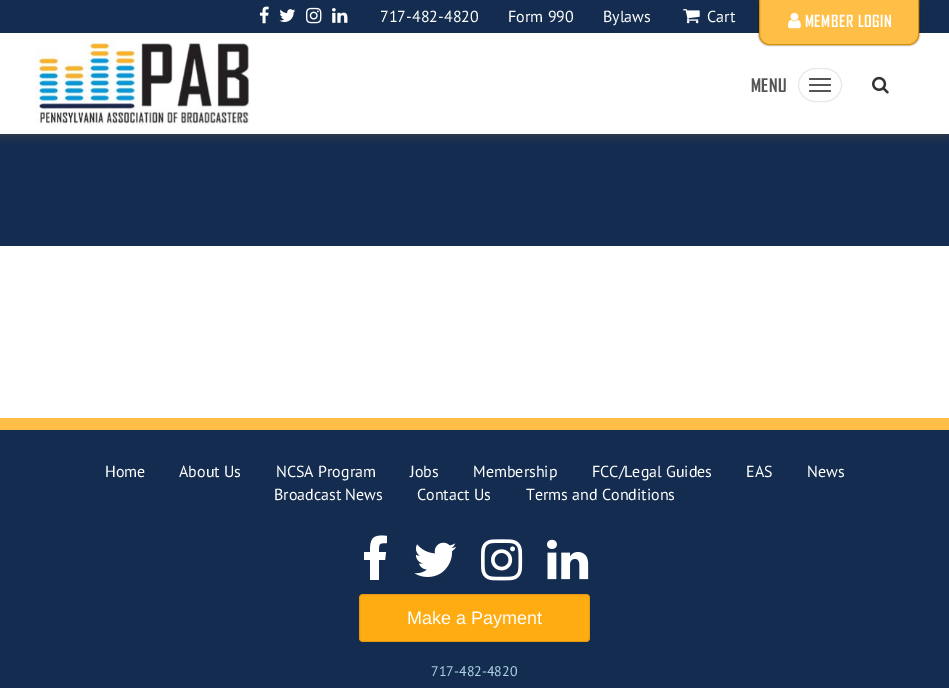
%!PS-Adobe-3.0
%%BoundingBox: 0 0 949 688
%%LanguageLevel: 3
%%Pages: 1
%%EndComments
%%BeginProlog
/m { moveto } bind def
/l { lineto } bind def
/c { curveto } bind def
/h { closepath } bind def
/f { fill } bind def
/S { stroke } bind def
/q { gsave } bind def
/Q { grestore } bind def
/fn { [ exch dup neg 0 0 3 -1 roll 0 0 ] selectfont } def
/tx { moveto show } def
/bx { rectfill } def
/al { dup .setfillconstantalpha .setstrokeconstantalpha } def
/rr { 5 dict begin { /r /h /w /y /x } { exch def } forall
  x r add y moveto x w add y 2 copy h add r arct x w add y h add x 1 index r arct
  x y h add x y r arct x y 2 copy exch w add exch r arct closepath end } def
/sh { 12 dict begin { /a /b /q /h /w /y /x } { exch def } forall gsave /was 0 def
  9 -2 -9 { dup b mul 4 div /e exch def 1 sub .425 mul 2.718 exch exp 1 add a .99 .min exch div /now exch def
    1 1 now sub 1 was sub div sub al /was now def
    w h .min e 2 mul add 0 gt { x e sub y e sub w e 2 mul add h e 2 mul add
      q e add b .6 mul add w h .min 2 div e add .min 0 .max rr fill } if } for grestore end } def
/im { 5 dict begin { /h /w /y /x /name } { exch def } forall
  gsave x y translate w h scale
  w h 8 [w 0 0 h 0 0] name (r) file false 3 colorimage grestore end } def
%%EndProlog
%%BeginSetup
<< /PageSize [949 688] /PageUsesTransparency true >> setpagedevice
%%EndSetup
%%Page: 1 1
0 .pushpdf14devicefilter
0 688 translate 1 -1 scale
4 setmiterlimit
1 setgray
0 0 949 688 bx
0.075 0.173 0.314 setrgbcolor
0 134 949 112 bx
0.267 setgray
0 1 949 134 0 5 1 sh
1 setgray
0 33 949 101 bx
0.075 0.173 0.314 setrgbcolor
0 0 949 33 bx
(image0.raw) 259 6 10 18 im
(image1.raw) 279 9 17 13 im
(image2.raw) 306 7 16 17 im
(image3.raw) 332 8 16 15 im
/PTSans-Regular 16 fn
1 setgray
(717-482-4820) 380 22 tx
(Form 990) 508 22 tx
(Bylaws) 603 22 tx
(image4.raw) 683 9 17 15 im
(Cart) 707 22 tx
0 setgray
758 -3 162 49 11 0.5 0.2 sh
1 0.745 0.271 setrgbcolor
759.5 -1.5 m 918.5 -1.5 l 918.5 35 l 918.5 40 914 44.5 909 44.5 c 769 44.5 l 764 44.5 759.5 40 759.5 35 c h q f Q
0.847 0.565 0.039 setrgbcolor
S
(image5.raw) 788 12 13 17 im
/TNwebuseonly-Regular 16 fn
1 setgray
805 27 m 0.6 0 (MEMBER LOGIN) ashow
(image6.raw) 35 38 215 87 im
0.91 setgray
798.5 68.5 43 33 16.5 rr S
/TNwebuseonly-Regular 18 fn
0.333 setgray
751 92 m 0.5 0 (MENU) ashow
809 78 22 2 1 rr f
809 84 22 2 1 rr f
809 90 22 2 1 rr f
(image7.raw) 872 76 17 18 im
1 0.745 0.271 setrgbcolor
0 418 949 12 bx
0.075 0.173 0.314 setrgbcolor
0 430 949 258 bx
/PTSans-Regular 16 fn
1 setgray
(Home) 105 477 tx
(About Us) 179 477 tx
(NCSA Program) 276 477 tx
(Jobs) 410 477 tx
(Membership) 473 477 tx
(FCC/Legal Guides) 592 477 tx
(EAS) 746 477 tx
(News) 807 477 tx
(Broadcast News) 274 500 tx
(Contact Us) 417 500 tx
(Terms and Conditions) 526 500 tx
387 536 m 387 543 l 378 543 379 544 379 552 c 386 552 l 385 560 l 379 560 l 379 580 l 370 580 l 370 560 l 364 560 l 364 552 l 370 552 l 370 539 372 534 387 536 c h f
(image8.raw) 414 542 43 35 im
(image9.raw) 481 539 42 42 im
(image10.raw) 547 539 42 41 im
1 0.675 0.071 setrgbcolor
359 594 231 48 4 rr f
0.1 al
0 setgray
359.5 594.5 230 47 3.5 rr S
/LiberationSans-Regular 18 fn
1 al
1 setgray
(Make a Payment) 407 624 tx
/PTSans-Regular 14 fn
0.675 0.827 0.894 setrgbcolor
(717-482-4820) 431 676 tx
.poppdf14devicefilter showpage
%%EOF
